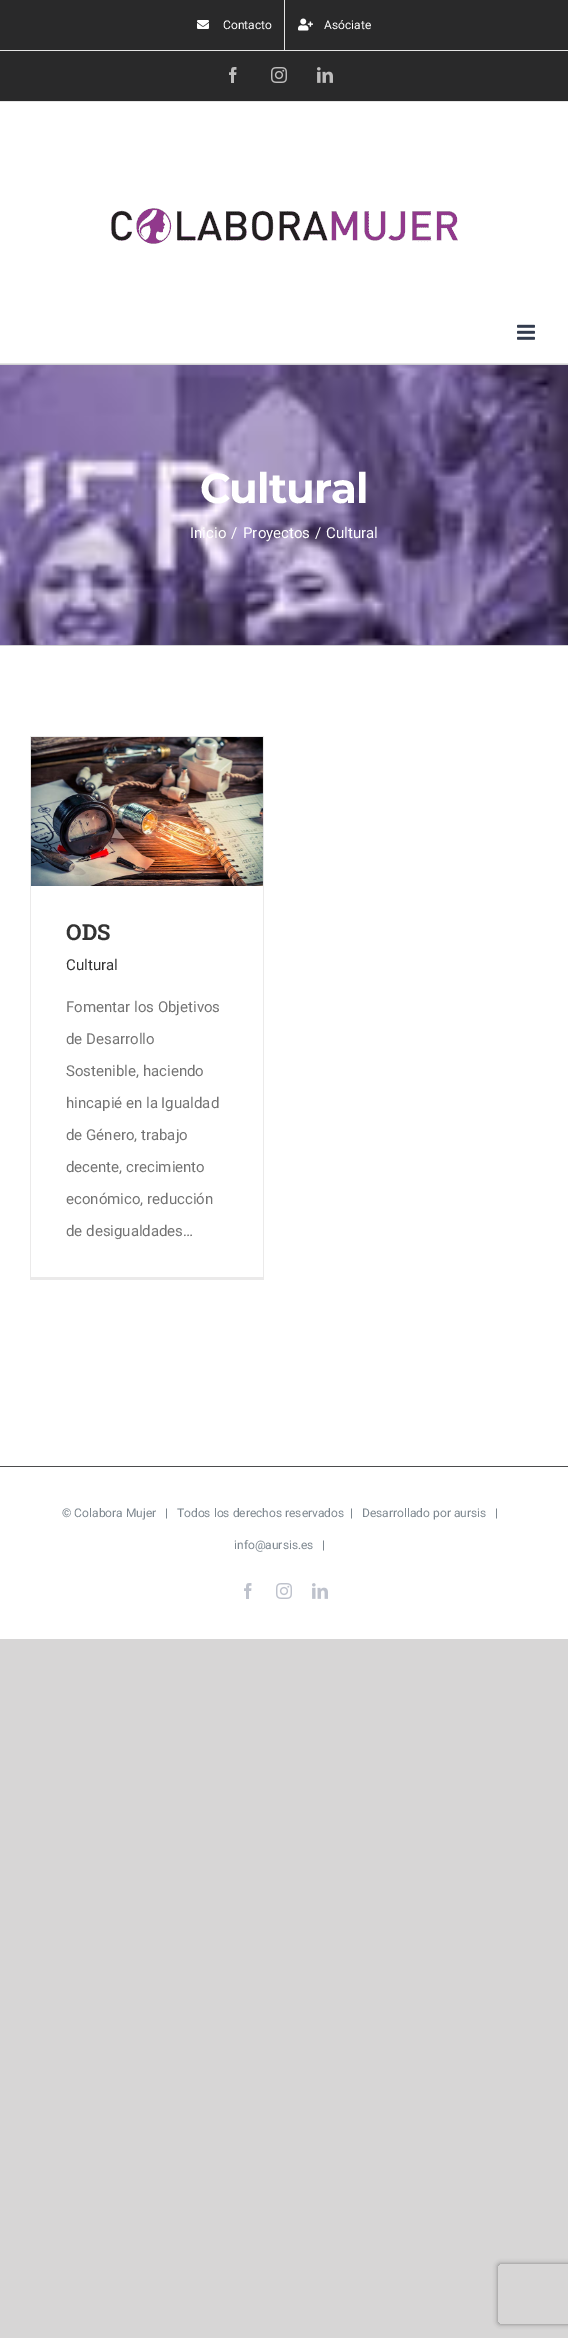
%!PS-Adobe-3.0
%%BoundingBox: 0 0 568 2338
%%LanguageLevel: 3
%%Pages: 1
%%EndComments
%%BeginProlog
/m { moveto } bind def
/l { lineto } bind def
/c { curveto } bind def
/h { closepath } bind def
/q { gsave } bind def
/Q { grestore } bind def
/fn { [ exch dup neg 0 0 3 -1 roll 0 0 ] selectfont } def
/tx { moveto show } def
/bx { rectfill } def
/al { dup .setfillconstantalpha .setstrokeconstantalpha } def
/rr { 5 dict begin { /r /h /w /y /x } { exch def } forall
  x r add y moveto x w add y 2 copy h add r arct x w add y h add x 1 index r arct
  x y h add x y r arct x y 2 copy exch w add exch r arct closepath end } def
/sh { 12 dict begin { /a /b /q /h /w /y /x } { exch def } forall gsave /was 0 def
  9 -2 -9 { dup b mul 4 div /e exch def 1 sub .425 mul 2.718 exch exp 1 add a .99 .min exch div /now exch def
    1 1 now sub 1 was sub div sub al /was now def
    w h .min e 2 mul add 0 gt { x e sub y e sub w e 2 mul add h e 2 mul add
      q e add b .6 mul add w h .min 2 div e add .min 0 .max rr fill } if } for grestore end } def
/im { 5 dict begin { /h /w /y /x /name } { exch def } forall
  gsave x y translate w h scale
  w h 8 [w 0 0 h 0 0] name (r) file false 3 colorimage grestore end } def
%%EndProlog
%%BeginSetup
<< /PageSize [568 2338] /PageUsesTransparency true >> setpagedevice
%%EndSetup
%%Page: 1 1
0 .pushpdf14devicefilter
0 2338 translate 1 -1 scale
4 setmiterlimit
0.843 0.839 0.839 setrgbcolor
0 0 568 2338 bx
1 setgray
0 102 568 1537 bx
0.161 0.161 0.165 setrgbcolor
0 0 568 101 bx
0.898 setgray
0 101 568 1 bx
0 50 568 1 bx
(image0.raw) 197 20 12 9 im
/Roboto-Regular 12 fn
1 setgray
(Contacto) 223 29 tx
0.898 setgray
284 0 1 50 bx
(image1.raw) 298 18 15 13 im
1 setgray
(Asóciate) 324 29 tx
(image2.raw) 229 67 8 16 im
(image3.raw) 271 67 16 16 im
(image4.raw) 317 67 16 16 im
0.898 setgray
0 363 568 1 bx
(image5.raw) 111 208 347 36 im
(image6.raw) 517 324 18 16 im
(image7.raw) 0 365 568 280 im
0.824 0.827 0.831 setrgbcolor
0 364 568 1 bx
0 645 568 1 bx
/Montserrat-Thin 42 fn
1 setgray
200 503 m -1 0 (Cultural) ashow
/Roboto-Regular 15 fn
(Inicio) 190 538 tx
(/) 231 538 tx
(Proyectos) 243 538 tx
(/) 315 538 tx
(Cultural) 326 538 tx
0.922 0.918 0.918 setrgbcolor
30 736 234 1 bx
263 736 1 544 bx
30 1277 234 3 bx
30 736 1 544 bx
(image8.raw) 31 737 232 149 im
/RobotoSlab-Bold 22 fn
0.2 setgray
(ODS) 66 940 tx
/Roboto-Regular 15 fn
(Cultural) 66 970 tx
0.455 setgray
(Fomentar los Objetivos) 66 1012 tx
(de Desarrollo) 66 1044 tx
(Sostenible, haciendo) 66 1076 tx
(hincapié en la Igualdad) 66 1108 tx
(de Género, trabajo) 66 1140 tx
(decente, crecimiento) 66 1172 tx
(económico, reducción) 66 1204 tx
(de desigualdades…) 66 1236 tx
0.294 0.298 0.302 setrgbcolor
0 1466 568 1 bx
/Roboto-Regular 12 fn
0.494 0.533 0.565 setrgbcolor
(© Colabora Mujer) 62 1517 tx
(|   Todos los derechos reservados  |   Desarrollado por aursis) 165 1517 tx
(|) 495 1517 tx
(info@aursis.es) 234 1549 tx
(|) 322 1549 tx
(image9.raw) 244 1583 8 16 im
(image10.raw) 276 1583 16 16 im
(image11.raw) 312 1583 16 16 im
q
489 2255 m 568 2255 l 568 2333 l 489 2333 l h 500 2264 m 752 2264 l 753 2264 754 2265 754 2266 c 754 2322 l 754 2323 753 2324 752 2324 c 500 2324 l 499 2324 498 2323 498 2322 c 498 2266 l 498 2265 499 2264 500 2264 c h eoclip newpath
0.502 setgray
498 2264 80 60 2 2.5 1 sh
Q
.poppdf14devicefilter showpage
%%EOF
